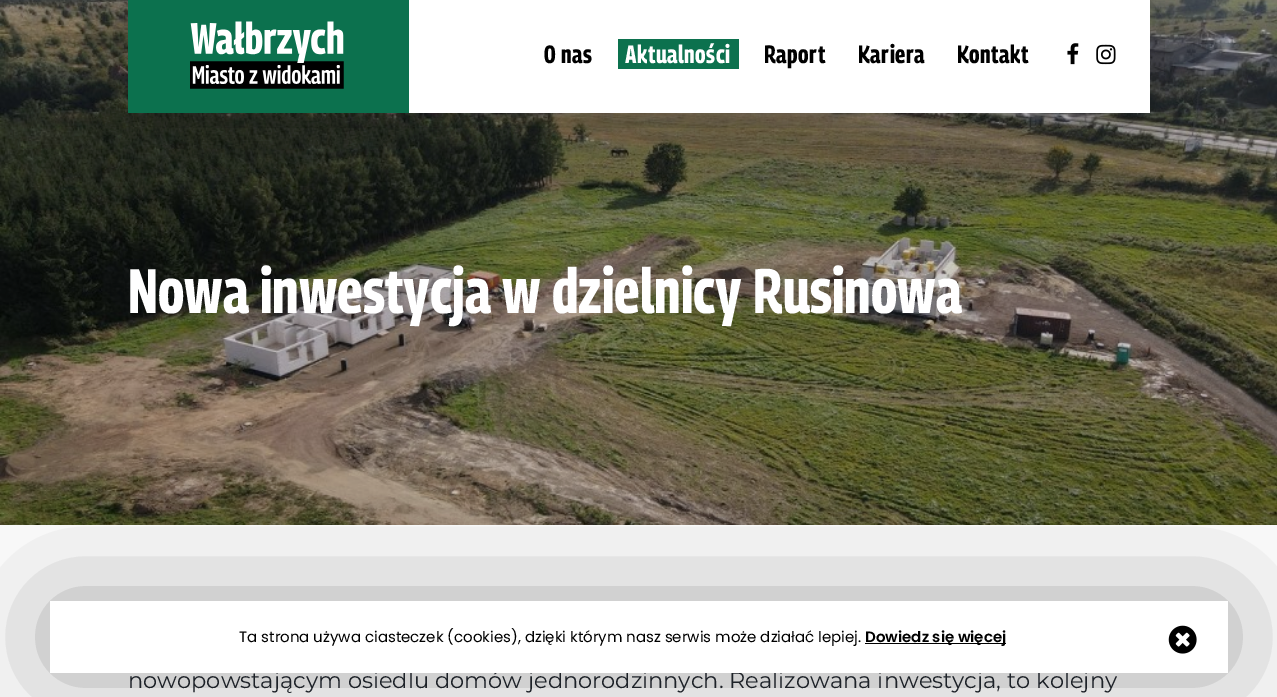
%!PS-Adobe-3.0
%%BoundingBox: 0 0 1277 697
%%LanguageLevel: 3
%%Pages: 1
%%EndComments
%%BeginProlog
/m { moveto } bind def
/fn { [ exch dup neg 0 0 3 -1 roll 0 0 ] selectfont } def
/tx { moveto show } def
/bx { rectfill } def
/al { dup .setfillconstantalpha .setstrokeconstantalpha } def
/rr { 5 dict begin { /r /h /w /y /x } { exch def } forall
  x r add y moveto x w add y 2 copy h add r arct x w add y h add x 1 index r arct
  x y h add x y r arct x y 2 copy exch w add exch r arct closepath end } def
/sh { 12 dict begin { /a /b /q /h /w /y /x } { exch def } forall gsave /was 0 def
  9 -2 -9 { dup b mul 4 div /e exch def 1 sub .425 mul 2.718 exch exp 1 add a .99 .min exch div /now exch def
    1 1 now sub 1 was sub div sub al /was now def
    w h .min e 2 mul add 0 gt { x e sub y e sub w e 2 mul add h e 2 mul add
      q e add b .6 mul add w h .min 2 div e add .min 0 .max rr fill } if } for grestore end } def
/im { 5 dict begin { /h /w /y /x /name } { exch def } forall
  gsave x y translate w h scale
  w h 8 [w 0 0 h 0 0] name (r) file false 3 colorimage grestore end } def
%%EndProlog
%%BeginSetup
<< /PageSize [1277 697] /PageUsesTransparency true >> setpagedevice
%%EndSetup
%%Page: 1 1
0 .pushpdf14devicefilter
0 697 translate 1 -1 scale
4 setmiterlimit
1 setgray
0 0 1277 697 bx
(image3.raw) 0 0 1277 525 im
0 setgray
128 0 1022 113 0 59.5 0.35 sh
1 setgray
409 0 741 113 bx
0.047 0.443 0.306 setrgbcolor
128 0 281 113 bx
(image0.raw) 190 21 154 68 im
/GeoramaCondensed-Bold 25 fn
0 setgray
544 63 m 0.5 0 (O nas) ashow
0.047 0.443 0.306 setrgbcolor
618 39 121 30 bx
1 setgray
625 63 m 0.5 0 (Aktualności) ashow
0 setgray
764 63 m 0.5 0 (Raport) ashow
858 63 m 0.5 0 (Kariera) ashow
957 63 m 0.5 0 (Kontakt) ashow
(image1.raw) 1067 43 12 22 im
(image2.raw) 1096 44 20 21 im
/GeoramaCondensed-Bold 62.5 fn
1 setgray
(Nowa inwestycja w dzielnicy Rusinowa) 128 313 tx
/Montserrat-Regular 22.5 fn
0.141 0.161 0.188 setrgbcolor
(nowopowstającym osiedlu domów jednorodzinnych. Realizowana inwestycja, to kolejny) 128 688 tx
0 setgray
50 601 1178 72 0 59.5 0.35 sh
1 setgray
50 601 1178 72 bx
/Poppins-Regular 15 fn
0 setgray
(Ta strona używa ciasteczek \(cookies\), dzięki którym nasz serwis może działać lepiej.) 239 642 tx
865 643 141 1 bx
/Poppins-SemiBold 15 fn
(Dowiedz się więcej) 865 642 tx
(image4.raw) 1168 625 29 29 im
.poppdf14devicefilter showpage
%%EOF
